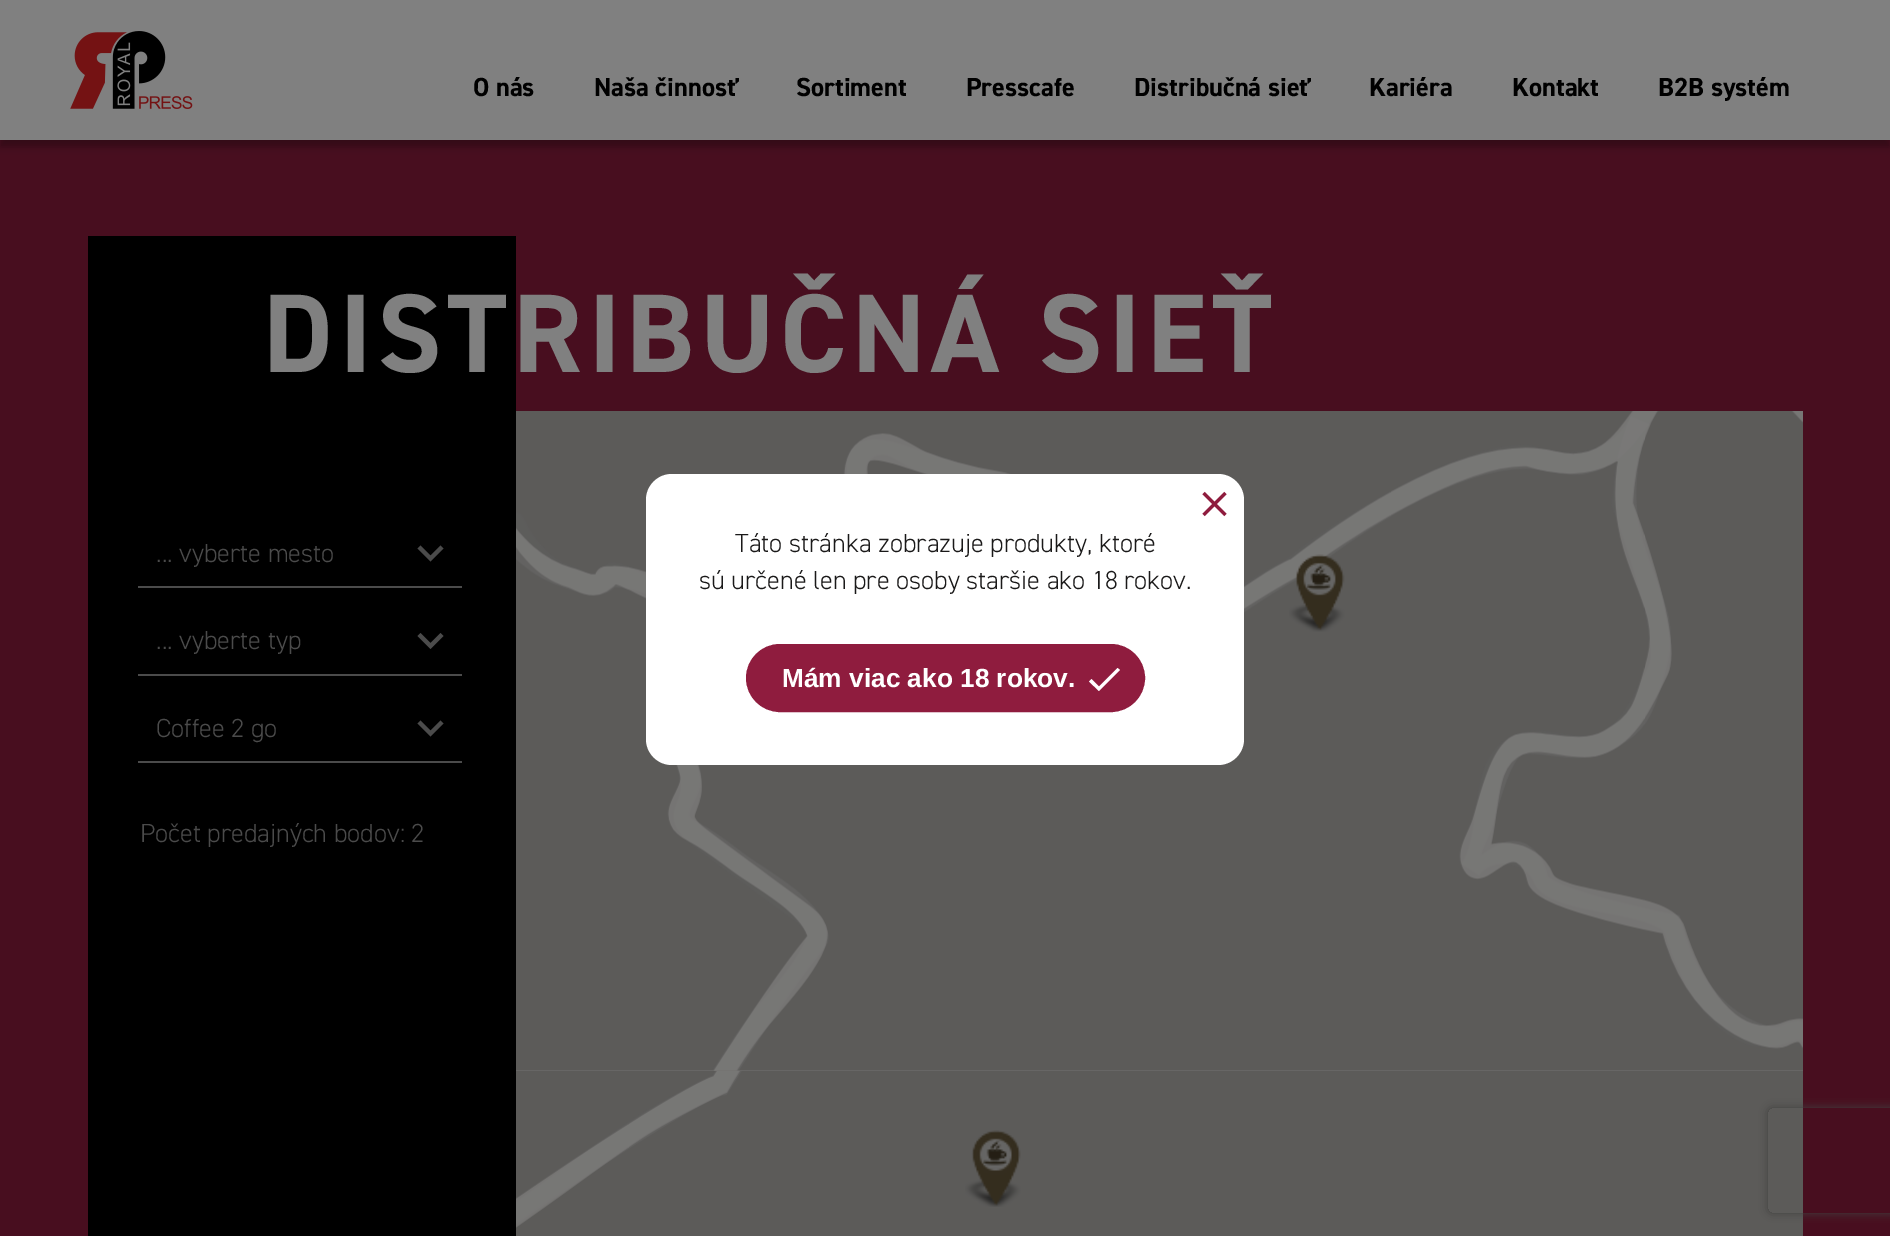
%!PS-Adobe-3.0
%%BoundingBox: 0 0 1890 1236
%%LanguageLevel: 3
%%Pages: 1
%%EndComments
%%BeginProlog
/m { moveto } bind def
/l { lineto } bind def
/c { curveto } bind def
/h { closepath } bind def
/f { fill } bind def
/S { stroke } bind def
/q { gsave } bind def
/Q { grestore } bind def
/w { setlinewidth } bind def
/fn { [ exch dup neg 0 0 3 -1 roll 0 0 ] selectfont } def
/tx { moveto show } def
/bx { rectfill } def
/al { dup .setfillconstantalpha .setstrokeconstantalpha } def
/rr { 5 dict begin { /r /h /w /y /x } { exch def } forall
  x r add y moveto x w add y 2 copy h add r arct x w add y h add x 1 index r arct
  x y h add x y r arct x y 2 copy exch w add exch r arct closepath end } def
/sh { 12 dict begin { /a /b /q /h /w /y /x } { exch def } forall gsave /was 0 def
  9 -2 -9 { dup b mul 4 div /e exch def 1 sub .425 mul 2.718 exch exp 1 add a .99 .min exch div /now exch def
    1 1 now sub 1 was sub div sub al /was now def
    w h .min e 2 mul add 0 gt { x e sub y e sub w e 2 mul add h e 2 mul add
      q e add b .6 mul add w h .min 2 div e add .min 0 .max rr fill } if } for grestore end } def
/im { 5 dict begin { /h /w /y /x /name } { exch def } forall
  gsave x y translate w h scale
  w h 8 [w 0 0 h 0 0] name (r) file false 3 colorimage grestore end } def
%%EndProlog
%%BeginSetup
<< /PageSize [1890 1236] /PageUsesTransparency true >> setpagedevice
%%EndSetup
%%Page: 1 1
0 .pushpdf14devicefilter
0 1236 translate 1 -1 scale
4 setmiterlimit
0.282 0.055 0.122 setrgbcolor
0 0 1890 1236 bx
0 setgray
0 7 1890 140 0 3.5 0.25 sh
0.502 setgray
0 0 1890 140 bx
(image0.raw) 70 31 123 78 im
/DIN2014-Bold 26.25 fn
0 setgray
(O nás) 473 96 tx
(Naša činnosť) 594 96 tx
(Sortiment) 796 96 tx
(Presscafe) 966 96 tx
(Distribučná sieť) 1134 96 tx
(Kariéra) 1369 96 tx
(Kontakt) 1512 96 tx
(B2B systém) 1658 96 tx
88 236 428 1000 bx
/DIN2014-Bold 112 fn
0.502 setgray
263 372 m 5.6 0 (DISTRIBUČNÁ SIEŤ) ashow
0.294 setgray
138 586 324 2 bx
/DIN2014-Light 26.25 fn
(... vyberte mesto) 156 562 tx
420.5 545.5 m 430.5 555.5 l 440.5 545.5 l 443.5 548.5 l 430.5 561.5 l 417.5 548.5 l h f
138 674 324 2 bx
(... vyberte typ) 156 649 tx
420.5 633 m 430.5 643 l 440.5 633 l 443.5 636 l 430.5 649 l 417.5 636 l h f
138 761 324 2 bx
(Coffee 2 go) 156 737 tx
420.5 720.5 m 430.5 730.5 l 440.5 720.5 l 443.5 723.5 l 430.5 736.5 l 417.5 723.5 l h f
(Počet predajných bodov: 2) 140 842 tx
0.451 0.447 0.439 setrgbcolor
516 411 1287 825 bx
(image1.raw) 516 411 1287 660 im
(image2.raw) 516 1071 1287 165 im
(image3.raw) 1289 554 56 78 im
(image4.raw) 965 1130 56 77 im
1 setgray
646 474 598 291 26 rr f
(image5.raw) 1202 491 25 26 im
0.102 0.098 0.098 setrgbcolor
(Táto stránka zobrazuje produkty, ktoré) 735 552 tx
(sú určené len pre osoby staršie ako 18 rokov.) 699 589 tx
0.561 0.11 0.243 setrgbcolor
747 645 397 66 33 rr q f Q
2 w
S
/LiberationSans-Bold 26.25 fn
1 setgray
(Mám viac ako 18 rokov.) 782 687 tx
1099 686.5 m 1117.5 668 l 1120 670 l 1099 691 l 1089 681.5 l 1091.5 679 l h f
q
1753 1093 m 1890 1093 l 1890 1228 l 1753 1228 l h 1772 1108 m 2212 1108 l 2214 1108 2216 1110 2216 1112 c 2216 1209 l 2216 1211 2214 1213 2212 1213 c 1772 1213 l 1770 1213 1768 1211 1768 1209 c 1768 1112 l 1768 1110 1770 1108 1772 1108 c h eoclip newpath
0.251 setgray
1768 1108 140 105 4 4.5 1 sh
Q
.poppdf14devicefilter showpage
%%EOF
